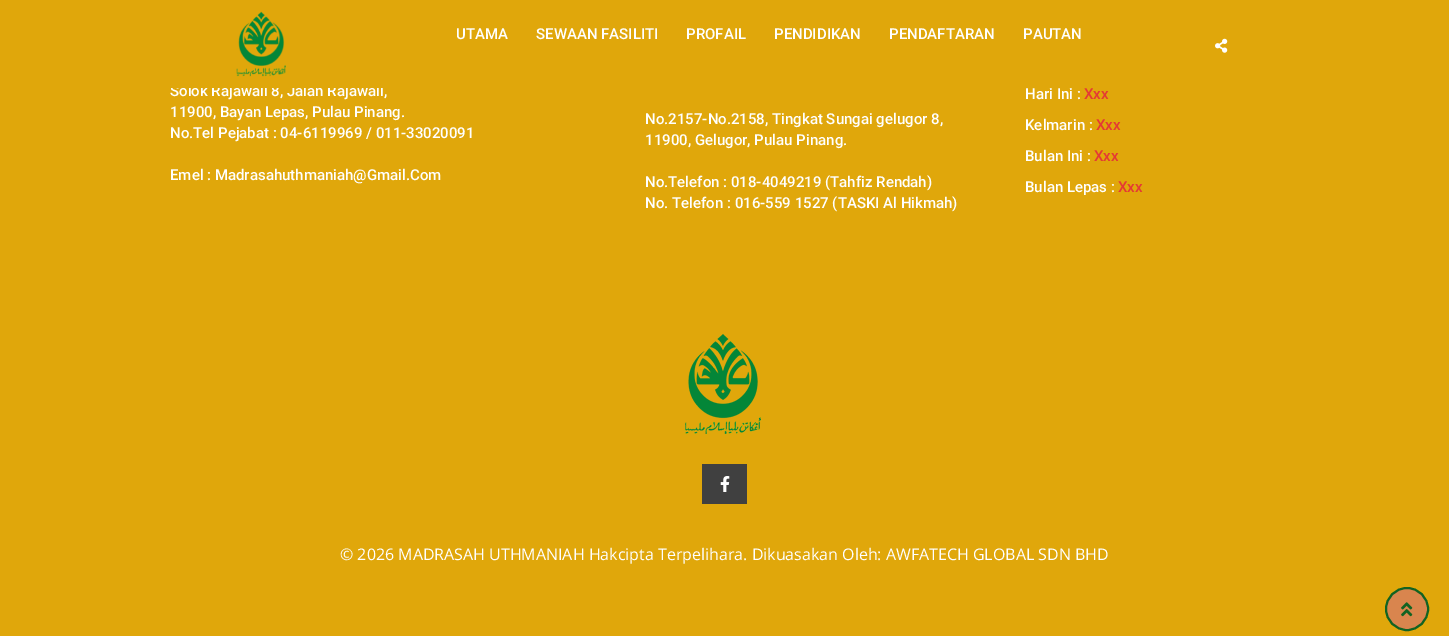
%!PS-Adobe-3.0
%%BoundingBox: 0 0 1449 636
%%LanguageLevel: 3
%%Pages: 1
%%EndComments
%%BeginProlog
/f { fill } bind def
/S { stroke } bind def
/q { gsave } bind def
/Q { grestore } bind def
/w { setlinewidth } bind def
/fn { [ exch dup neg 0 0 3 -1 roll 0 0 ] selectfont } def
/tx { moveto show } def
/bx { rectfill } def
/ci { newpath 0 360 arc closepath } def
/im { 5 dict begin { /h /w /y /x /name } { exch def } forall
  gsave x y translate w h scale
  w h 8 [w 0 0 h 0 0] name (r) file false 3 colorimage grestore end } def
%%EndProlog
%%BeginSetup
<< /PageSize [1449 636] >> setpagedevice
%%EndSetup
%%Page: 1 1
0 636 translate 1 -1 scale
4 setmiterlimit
0.878 0.655 0.043 setrgbcolor
0 0 1449 636 bx
/Roboto-Medium 15 fn
1 setgray
(Solok Rajawali 8, Jalan Rajawali,) 170 96 tx
0.878 0.655 0.043 setrgbcolor
170 84 213 4 bx
(image0.raw) 236 11 50 66 im
1 setgray
(UTAMA) 456 39 tx
(SEWAAN FASILITI) 536 39 tx
(PROFAIL) 686 39 tx
(PENDIDIKAN) 774 39 tx
(PENDAFTARAN) 889 39 tx
(PAUTAN) 1023 39 tx
(image1.raw) 1215 38 13 15 im
(11900, Bayan Lepas, Pulau Pinang.) 170 117 tx
(No.Tel Pejabat : 04-6119969 / 011-33020091) 170 138 tx
(Emel : Madrasahuthmaniah@Gmail.Com) 170 180 tx
(No.2157-No.2158, Tingkat Sungai gelugor 8,) 645 124 tx
(11900, Gelugor, Pulau Pinang.) 645 145 tx
(No.Telefon : 018-4049219 \(Tahfiz Rendah\)) 645 187 tx
(No. Telefon : 016-559 1527 \(TASKI Al Hikmah\)) 645 208 tx
(Hari Ini :) 1025 99 tx
0.898 0.224 0.208 setrgbcolor
(Xxx) 1084 99 tx
1 setgray
(Kelmarin :) 1025 130 tx
0.898 0.224 0.208 setrgbcolor
(Xxx) 1096 130 tx
1 setgray
(Bulan Ini :) 1025 161 tx
0.898 0.224 0.208 setrgbcolor
(Xxx) 1094 161 tx
1 setgray
(Bulan Lepas :) 1025 192 tx
0.898 0.224 0.208 setrgbcolor
(Xxx) 1118 192 tx
(image2.raw) 685 334 76 100 im
0.251 setgray
702 464 45 40 bx
(image3.raw) 720 476 10 16 im
/OpenSans-Regular 16 fn
1 setgray
(© 2026 MADRASAH UTHMANIAH Hakcipta Terpelihara. Dikuasakan Oleh: AWFATECH GLOBAL SDN BHD) 340 560 tx
0.851 0.522 0.306 setrgbcolor
1407 609 21 ci q f Q
0.071 0.388 0.133 setrgbcolor
2 w
S
(image4.raw) 1401 602 12 15 im
showpage
%%EOF
